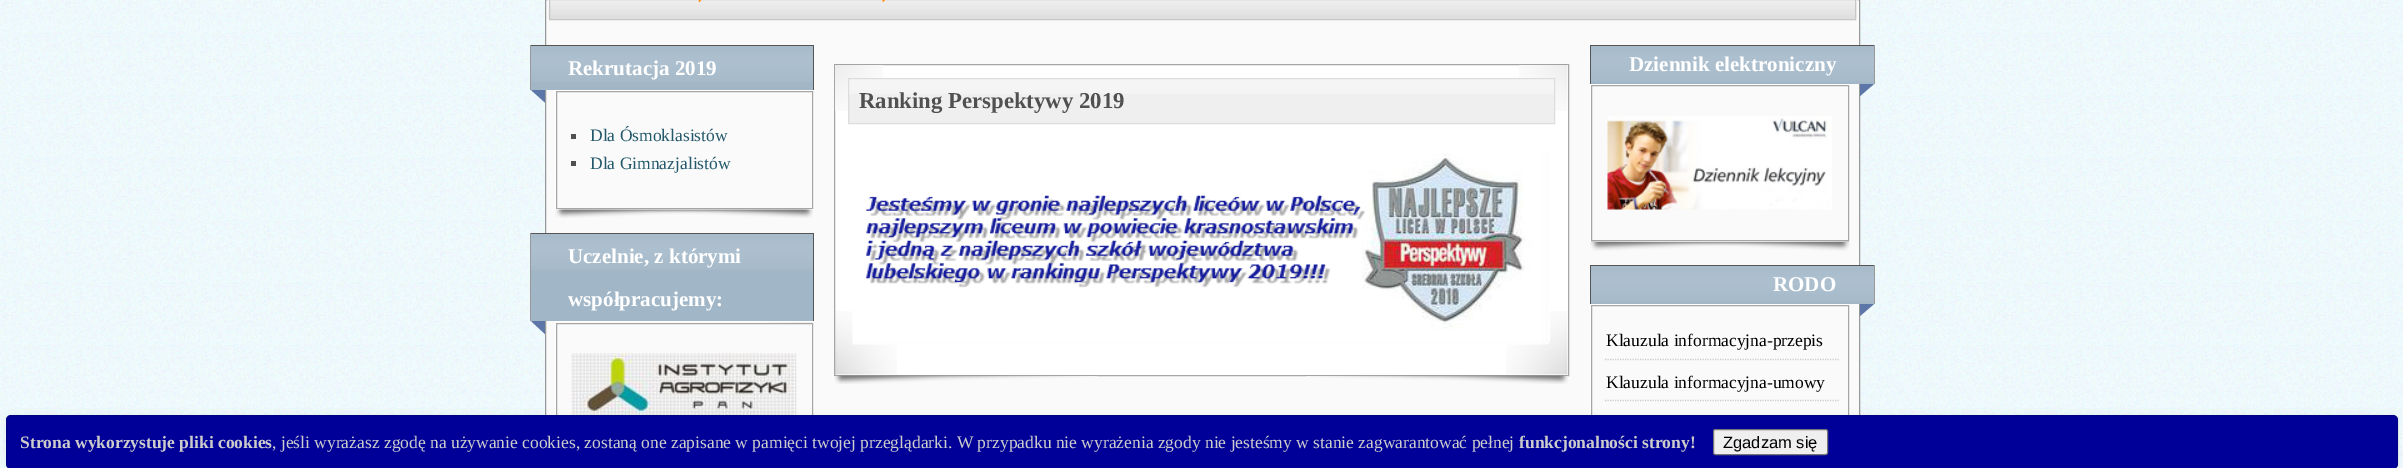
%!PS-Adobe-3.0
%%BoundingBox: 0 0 2403 468
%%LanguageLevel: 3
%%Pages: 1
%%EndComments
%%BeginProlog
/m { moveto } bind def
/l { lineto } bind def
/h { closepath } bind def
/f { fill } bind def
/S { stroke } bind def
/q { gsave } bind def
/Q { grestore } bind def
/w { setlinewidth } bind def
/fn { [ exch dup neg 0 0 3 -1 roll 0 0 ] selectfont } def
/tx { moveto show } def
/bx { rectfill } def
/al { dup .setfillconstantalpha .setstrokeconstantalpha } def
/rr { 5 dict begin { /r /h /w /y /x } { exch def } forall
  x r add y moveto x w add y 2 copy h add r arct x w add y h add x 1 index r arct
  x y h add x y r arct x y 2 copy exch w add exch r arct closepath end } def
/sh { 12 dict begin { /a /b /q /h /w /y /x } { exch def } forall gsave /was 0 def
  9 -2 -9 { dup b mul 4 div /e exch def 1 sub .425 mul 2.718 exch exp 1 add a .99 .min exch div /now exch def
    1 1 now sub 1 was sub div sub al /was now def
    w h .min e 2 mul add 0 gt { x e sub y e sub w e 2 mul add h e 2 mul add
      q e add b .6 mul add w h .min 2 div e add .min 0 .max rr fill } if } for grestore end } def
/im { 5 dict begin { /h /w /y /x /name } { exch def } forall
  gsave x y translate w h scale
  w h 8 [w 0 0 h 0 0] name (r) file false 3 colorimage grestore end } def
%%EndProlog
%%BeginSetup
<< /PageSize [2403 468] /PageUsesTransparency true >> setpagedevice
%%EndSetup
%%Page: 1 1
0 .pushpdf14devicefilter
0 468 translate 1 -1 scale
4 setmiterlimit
0.941 0.988 1 setrgbcolor
0 0 2403 468 bx
(image0.raw) 0 0 2403 468 im
0.98 setgray
546 0 1313 415 bx
0.6 setgray
545.5 -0.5 1314 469 rectstroke
(image1.raw) 548 0 1309 19 im
0.78 setgray
549.5 -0.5 1306 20 rectstroke
(image2.raw) 698 0 4 2 im
(image3.raw) 882 0 4 2 im
0.631 0.714 0.78 setrgbcolor
531 46 282 44 bx
(image4.raw) 531 46 282 36 im
0.333 setgray
530 45 284 1 bx
813 45 1 45 bx
0.6 setgray
530 45 1 45 bx
/LiberationSerif-Bold 21 fn
1 setgray
(Rekrutacja 2019) 568 75 tx
0.365 0.463 0.659 setrgbcolor
531 90 m 545 90 l 545 102.5 l h f
1 setgray
555.5 90.5 258 119 rectstroke
0.651 setgray
556.5 91.5 256 117 rectstroke
0.314 setgray
571 134 5 5 bx
/LiberationSerif-Regular 17.5 fn
0.141 0.349 0.42 setrgbcolor
(Dla Ósmoklasistów) 590 141 tx
0.314 setgray
571 161 5 5 bx
0.141 0.349 0.42 setrgbcolor
(Dla Gimnazjalistów) 590 169 tx
(image5.raw) 555 209 256 9 im
(image6.raw) 558 209 255 9 im
0.631 0.714 0.78 setrgbcolor
531 234 282 87 bx
(image7.raw) 531 234 282 36 im
0.333 setgray
530 233 284 1 bx
813 233 1 88 bx
0.6 setgray
530 233 1 88 bx
/LiberationSerif-Bold 21 fn
1 setgray
(Uczelnie, z którymi) 568 263 tx
(współpracujemy:) 568 306 tx
0.365 0.463 0.659 setrgbcolor
531 321 m 545 321 l 545 334 l h f
(image8.raw) 766 322 47 1 im
1 setgray
555.5 321.5 258 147 rectstroke
0.651 setgray
556.5 323.5 256 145 rectstroke
(image9.raw) 571 353 226 62 im
1 setgray
835 65 733 310 bx
(image10.raw) 835 311 62 64 im
0.651 setgray
834.5 64.5 734 311 rectstroke
(image11.raw) 1506 311 62 64 im
(image12.raw) 1519 64 49 47 im
(image13.raw) 835 64 48 47 im
0.937 setgray
849 79 705 44 bx
(image14.raw) 849 79 705 15 im
0.867 setgray
848.5 78.5 706 45 rectstroke
/LiberationSerif-Bold 22.75 fn
0.314 setgray
(Ranking Perspektywy 2019) 859 108 tx
(image15.raw) 852 153 698 192 im
(image16.raw) 834 375 263 9 im
(image17.raw) 1306 375 262 9 im
0.631 0.714 0.78 setrgbcolor
1591 46 283 38 bx
(image18.raw) 1591 46 283 36 im
0.333 setgray
1590 45 285 1 bx
0.6 setgray
1874 45 1 39 bx
0.333 setgray
1590 45 1 39 bx
/LiberationSerif-Bold 21 fn
1 setgray
(Dziennik elektroniczny) 1629 71 tx
0.365 0.463 0.659 setrgbcolor
1860 84 m 1874 84 l 1860 96 l h f
(image19.raw) 1591 241 60 1 im
(image20.raw) 1789 241 60 1 im
1 setgray
1590.5 84.5 259 158 rectstroke
0.651 setgray
1591.5 85.5 257 155 rectstroke
(image21.raw) 1607 116 225 94 im
(image22.raw) 1590 242 260 9 im
(image23.raw) 1590 242 260 9 im
0.631 0.714 0.78 setrgbcolor
1591 266 283 38 bx
(image24.raw) 1591 266 283 36 im
0.333 setgray
1590 265 285 1 bx
0.6 setgray
1874 265 1 39 bx
0.333 setgray
1590 265 1 39 bx
1 setgray
(RODO) 1773 291 tx
0.365 0.463 0.659 setrgbcolor
1860 304 m 1874 304 l 1860 316 l h f
1 setgray
1590.5 304.5 259 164 rectstroke
0.651 setgray
1591.5 305.5 257 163 rectstroke
0.8 setgray
1.2 w
[1.25 1.25] 0 setdash
1605 359.5 m 1839 359.5 l S
/LiberationSerif-Regular 17.5 fn
0 setgray
(Klauzula informacyjna-przepis) 1606 346 tx
0.8 setgray
1605 400.5 m 1839 400.5 l S
0 setgray
(Klauzula informacyjna-umowy) 1606 388 tx
6 415 2392 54 5 4 0.05 sh
0 0 0.6 setrgbcolor
6 415 2392 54 5 rr f
0.15 al
0 setgray
1 w
[] 0 setdash
6.5 415.5 2391 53 4.5 rr S
/LiberationSerif-Bold 17.5 fn
1 al
0.8 setgray
(Strona wykorzystuje pliki cookies) 20 448 tx
/LiberationSerif-Regular 17.5 fn
(, jeśli wyrażasz zgodę na używanie cookies, zostaną one zapisane w pamięci twojej przeglądarki. W przypadku nie wyrażenia zgody nie jesteśmy w stanie zagwarantować pełnej) 272 448 tx
/LiberationSerif-Bold 17.5 fn
(funkcjonalności strony!) 1519 448 tx
0.937 setgray
1713.5 429.5 114 25 2 rr q f Q
0.463 setgray
S
/LiberationSans-Regular 16.5 fn
0 setgray
(Zgadzam się) 1723 448 tx
.poppdf14devicefilter showpage
%%EOF
